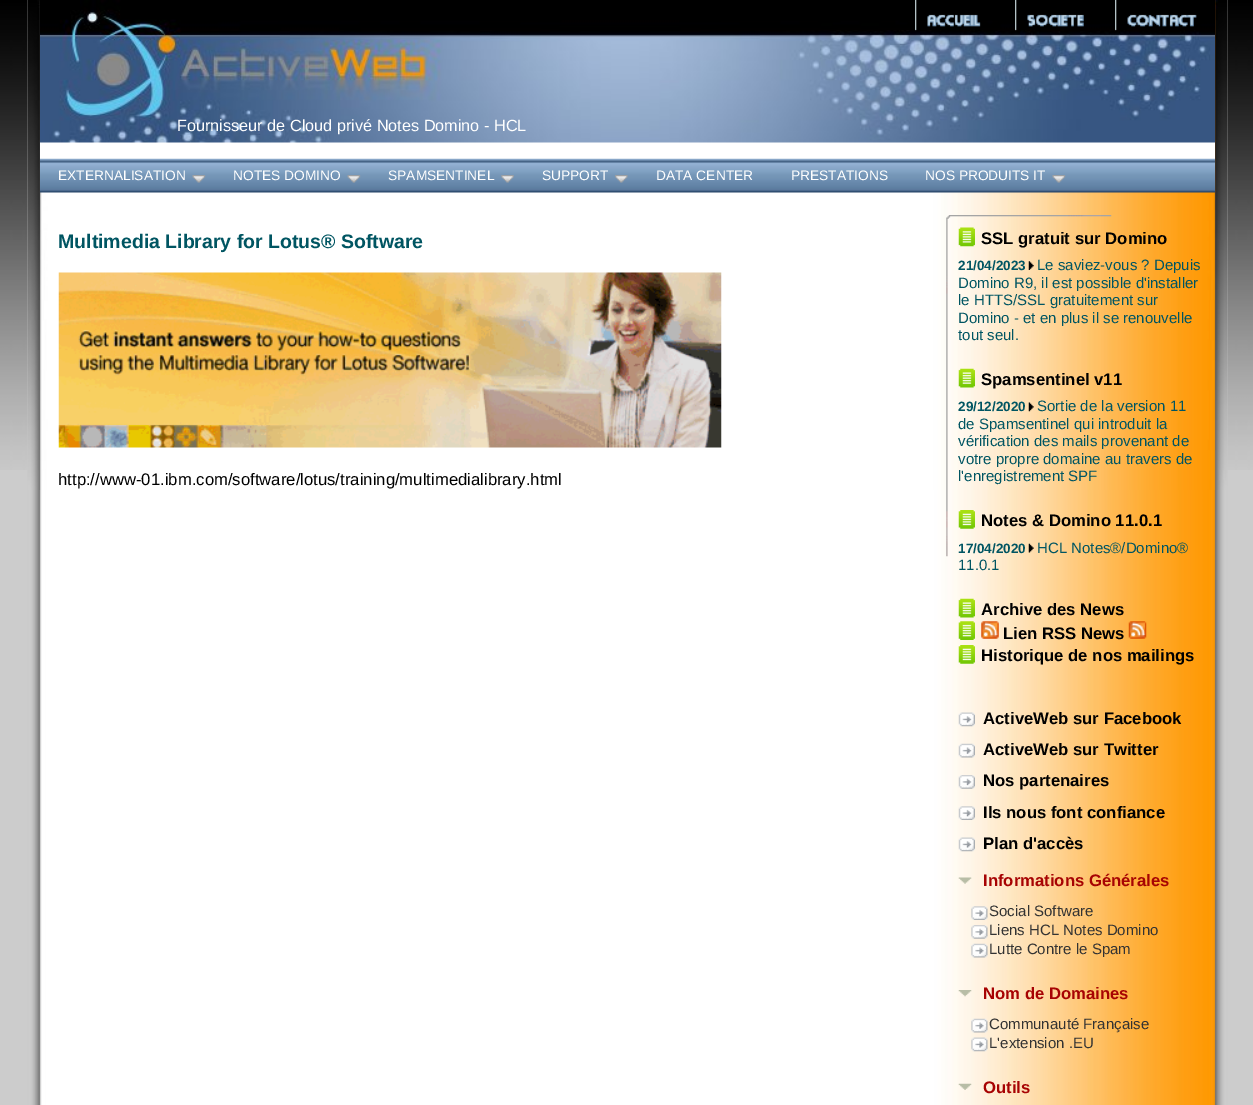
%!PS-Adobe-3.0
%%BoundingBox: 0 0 1253 1105
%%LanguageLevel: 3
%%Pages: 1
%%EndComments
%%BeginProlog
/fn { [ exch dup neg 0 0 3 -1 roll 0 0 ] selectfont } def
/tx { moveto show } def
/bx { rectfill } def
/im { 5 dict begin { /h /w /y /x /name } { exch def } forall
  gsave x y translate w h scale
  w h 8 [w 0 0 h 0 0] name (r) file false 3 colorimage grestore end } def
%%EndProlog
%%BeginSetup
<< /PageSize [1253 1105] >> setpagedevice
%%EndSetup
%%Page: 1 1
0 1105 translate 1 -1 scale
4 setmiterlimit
0.8 setgray
0 0 1253 1105 bx
(image0.raw) 0 0 1253 470 im
(image1.raw) 27 0 1201 1105 im
(image2.raw) 27 0 1201 490 im
1 setgray
40 142 1175 17 bx
(image3.raw) 40 0 1175 143 im
(image4.raw) 915 0 66 31 im
(image5.raw) 1015 0 69 31 im
(image6.raw) 1115 0 82 31 im
/LiberationSans-Regular 16.25 fn
(Fournisseur de Cloud privé Notes Domino - HCL) 177 131 tx
(image7.raw) 40 158 1175 35 im
/LiberationSans-Regular 13.75 fn
(EXTERNALISATION) 58 180 tx
(image8.raw) 192 175 14 8 im
(NOTES DOMINO) 233 180 tx
(image9.raw) 347 175 14 8 im
(SPAMSENTINEL) 388 180 tx
(image10.raw) 501 175 13 8 im
(SUPPORT) 542 180 tx
(image11.raw) 615 175 13 8 im
(DATA CENTER) 656 180 tx
(PRESTATIONS) 791 180 tx
(NOS PRODUITS IT) 925 180 tx
(image8.raw) 1052 175 14 8 im
/LiberationSans-Bold 19.5 fn
0 0.333 0.384 setrgbcolor
(Multimedia Library for Lotus® Software) 58 248 tx
(image12.raw) 58 272 664 176 im
/LiberationSans-Regular 16.7 fn
0 setgray
(http://www-01.ibm.com/software/lotus/training/multimedialibrary.html) 58 485 tx
(image13.raw) 946 215 166 342 im
(image14.raw) 958 227 17 20 im
/LiberationSans-Bold 16.7 fn
(SSL gratuit sur Domino) 981 244 tx
/LiberationSans-Bold 13.5 fn
0 0.333 0.384 setrgbcolor
(21/04/2023) 958 270 tx
(image15.raw) 1028 261 6 9 im
/LiberationSans-Regular 15 fn
(Le saviez-vous ? Depuis) 1037 270 tx
(Domino R9, il est possible d'installer) 958 288 tx
(le HTTS/SSL gratuitement sur) 958 305 tx
(Domino - et en plus il se renouvelle) 958 323 tx
(tout seul.) 958 340 tx
(image16.raw) 958 368 17 20 im
/LiberationSans-Bold 16.7 fn
0 setgray
(Spamsentinel v11) 981 385 tx
/LiberationSans-Bold 13.5 fn
0 0.333 0.384 setrgbcolor
(29/12/2020) 958 411 tx
(image17.raw) 1028 402 6 10 im
/LiberationSans-Regular 15 fn
(Sortie de la version 11) 1037 411 tx
(de Spamsentinel qui introduit la) 958 429 tx
(vérification des mails provenant de) 958 446 tx
(votre propre domaine au travers de) 958 464 tx
(l'enregistrement SPF) 958 481 tx
(image18.raw) 958 510 17 19 im
/LiberationSans-Bold 16.7 fn
0 setgray
(Notes & Domino 11.0.1) 981 526 tx
/LiberationSans-Bold 13.5 fn
0 0.333 0.384 setrgbcolor
(17/04/2020) 958 553 tx
(image19.raw) 1028 543 6 10 im
/LiberationSans-Regular 15 fn
(HCL Notes®/Domino®) 1037 553 tx
(11.0.1) 958 570 tx
(image20.raw) 958 598 17 20 im
/LiberationSans-Bold 16.7 fn
0 setgray
(Archive des News) 981 615 tx
(image21.raw) 958 621 17 19 im
(image22.raw) 981 621 18 18 im
(Lien RSS News) 1003 639 tx
(image23.raw) 1128 621 19 18 im
(image18.raw) 958 645 17 19 im
(Historique de nos mailings) 981 661 tx
(image24.raw) 958 712 17 15 im
(ActiveWeb sur Facebook) 983 724 tx
(image25.raw) 958 743 17 15 im
(ActiveWeb sur Twitter) 983 755 tx
(image26.raw) 958 775 17 14 im
(Nos partenaires) 983 786 tx
(image27.raw) 958 806 17 14 im
(Ils nous font confiance) 983 818 tx
(image24.raw) 958 837 17 15 im
(Plan d'accès) 983 849 tx
(image28.raw) 958 877 14 7 im
0.655 0.012 0.012 setrgbcolor
(Informations Générales) 983 886 tx
(image29.raw) 971 906 17 14 im
/LiberationSans-Regular 15 fn
0.2 setgray
(Social Software) 989 916 tx
(image30.raw) 971 925 17 14 im
(Liens HCL Notes Domino) 989 935 tx
(image31.raw) 971 943 17 15 im
(Lutte Contre le Spam) 989 954 tx
(image32.raw) 958 990 14 7 im
/LiberationSans-Bold 16.7 fn
0.655 0.012 0.012 setrgbcolor
(Nom de Domaines) 983 999 tx
(image31.raw) 971 1018 17 15 im
/LiberationSans-Regular 15 fn
0.2 setgray
(Communauté Française) 989 1029 tx
(image33.raw) 971 1037 17 15 im
(L'extension .EU) 989 1048 tx
(image34.raw) 958 1083 14 7 im
/LiberationSans-Bold 16.7 fn
0.655 0.012 0.012 setrgbcolor
(Outils) 983 1093 tx
showpage
%%EOF
